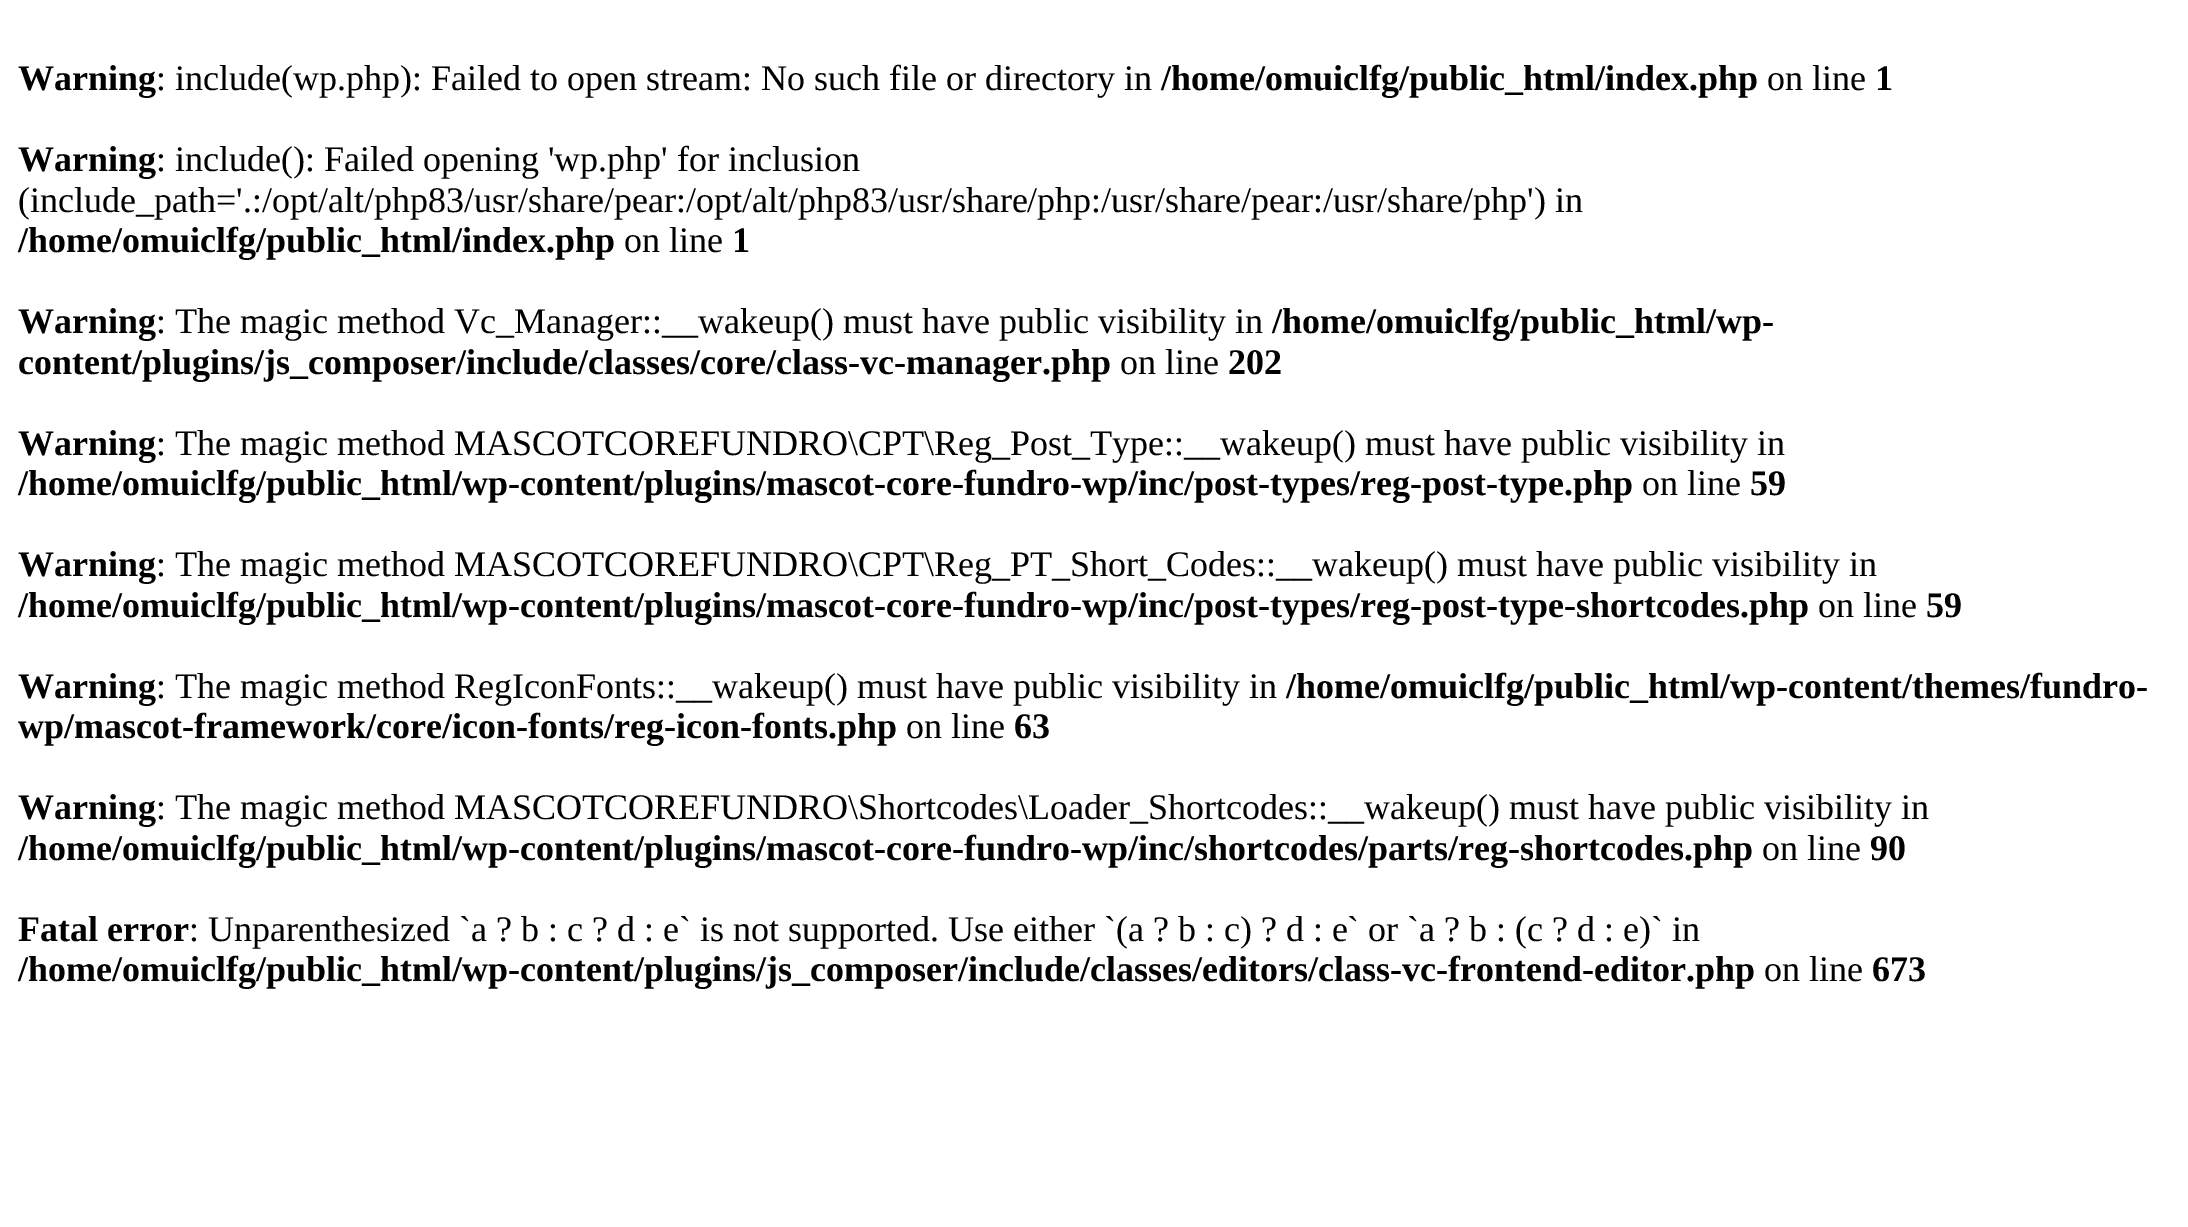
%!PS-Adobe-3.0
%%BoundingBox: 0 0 2188 1227
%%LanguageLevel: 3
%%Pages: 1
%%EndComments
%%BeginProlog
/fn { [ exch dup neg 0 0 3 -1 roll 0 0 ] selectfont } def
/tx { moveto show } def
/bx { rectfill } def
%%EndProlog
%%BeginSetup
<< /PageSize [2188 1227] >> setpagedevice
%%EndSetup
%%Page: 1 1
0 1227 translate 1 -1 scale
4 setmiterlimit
1 setgray
0 0 2188 1227 bx
/LiberationSerif-Bold 36 fn
0 setgray
(Warning) 18 90 tx
/LiberationSerif-Regular 36 fn
(: include\(wp.php\): Failed to open stream: No such file or directory in) 156 90 tx
/LiberationSerif-Bold 36 fn
(/home/omuiclfg/public_html/index.php) 1161 90 tx
/LiberationSerif-Regular 36 fn
(on line) 1767 90 tx
/LiberationSerif-Bold 36 fn
(1) 1875 90 tx
(Warning) 18 171 tx
/LiberationSerif-Regular 36 fn
(: include\(\): Failed opening 'wp.php' for inclusion) 156 171 tx
(\(include_path='.:/opt/alt/php83/usr/share/pear:/opt/alt/php83/usr/share/php:/usr/share/pear:/usr/share/php'\) in) 18 212 tx
/LiberationSerif-Bold 36 fn
(/home/omuiclfg/public_html/index.php) 18 252 tx
/LiberationSerif-Regular 36 fn
(on line) 624 252 tx
/LiberationSerif-Bold 36 fn
(1) 732 252 tx
(Warning) 18 333 tx
/LiberationSerif-Regular 36 fn
(: The magic method Vc_Manager::__wakeup\(\) must have public visibility in) 156 333 tx
/LiberationSerif-Bold 36 fn
(/home/omuiclfg/public_html/wp-) 1272 333 tx
(content/plugins/js_composer/include/classes/core/class-vc-manager.php) 18 374 tx
/LiberationSerif-Regular 36 fn
(on line) 1120 374 tx
/LiberationSerif-Bold 36 fn
(202) 1228 374 tx
(Warning) 18 455 tx
/LiberationSerif-Regular 36 fn
(: The magic method MASCOTCOREFUNDRO\\CPT\\Reg_Post_Type::__wakeup\(\) must have public visibility in) 156 455 tx
/LiberationSerif-Bold 36 fn
(/home/omuiclfg/public_html/wp-content/plugins/mascot-core-fundro-wp/inc/post-types/reg-post-type.php) 18 495 tx
/LiberationSerif-Regular 36 fn
(on line) 1642 495 tx
/LiberationSerif-Bold 36 fn
(59) 1750 495 tx
(Warning) 18 576 tx
/LiberationSerif-Regular 36 fn
(: The magic method MASCOTCOREFUNDRO\\CPT\\Reg_PT_Short_Codes::__wakeup\(\) must have public visibility in) 156 576 tx
/LiberationSerif-Bold 36 fn
(/home/omuiclfg/public_html/wp-content/plugins/mascot-core-fundro-wp/inc/post-types/reg-post-type-shortcodes.php) 18 617 tx
/LiberationSerif-Regular 36 fn
(on line) 1818 617 tx
/LiberationSerif-Bold 36 fn
(59) 1926 617 tx
(Warning) 18 698 tx
/LiberationSerif-Regular 36 fn
(: The magic method RegIconFonts::__wakeup\(\) must have public visibility in) 156 698 tx
/LiberationSerif-Bold 36 fn
(/home/omuiclfg/public_html/wp-content/themes/fundro-) 1286 698 tx
(wp/mascot-framework/core/icon-fonts/reg-icon-fonts.php) 18 738 tx
/LiberationSerif-Regular 36 fn
(on line) 906 738 tx
/LiberationSerif-Bold 36 fn
(63) 1014 738 tx
(Warning) 18 819 tx
/LiberationSerif-Regular 36 fn
(: The magic method MASCOTCOREFUNDRO\\Shortcodes\\Loader_Shortcodes::__wakeup\(\) must have public visibility in) 156 819 tx
/LiberationSerif-Bold 36 fn
(/home/omuiclfg/public_html/wp-content/plugins/mascot-core-fundro-wp/inc/shortcodes/parts/reg-shortcodes.php) 18 860 tx
/LiberationSerif-Regular 36 fn
(on line) 1762 860 tx
/LiberationSerif-Bold 36 fn
(90) 1870 860 tx
(Fatal error) 18 941 tx
/LiberationSerif-Regular 36 fn
(: Unparenthesized `a ? b : c ? d : e` is not supported. Use either `\(a ? b : c\) ? d : e` or `a ? b : \(c ? d : e\)` in) 189 941 tx
/LiberationSerif-Bold 36 fn
(/home/omuiclfg/public_html/wp-content/plugins/js_composer/include/classes/editors/class-vc-frontend-editor.php) 18 981 tx
/LiberationSerif-Regular 36 fn
(on line) 1764 981 tx
/LiberationSerif-Bold 36 fn
(673) 1872 981 tx
showpage
%%EOF
